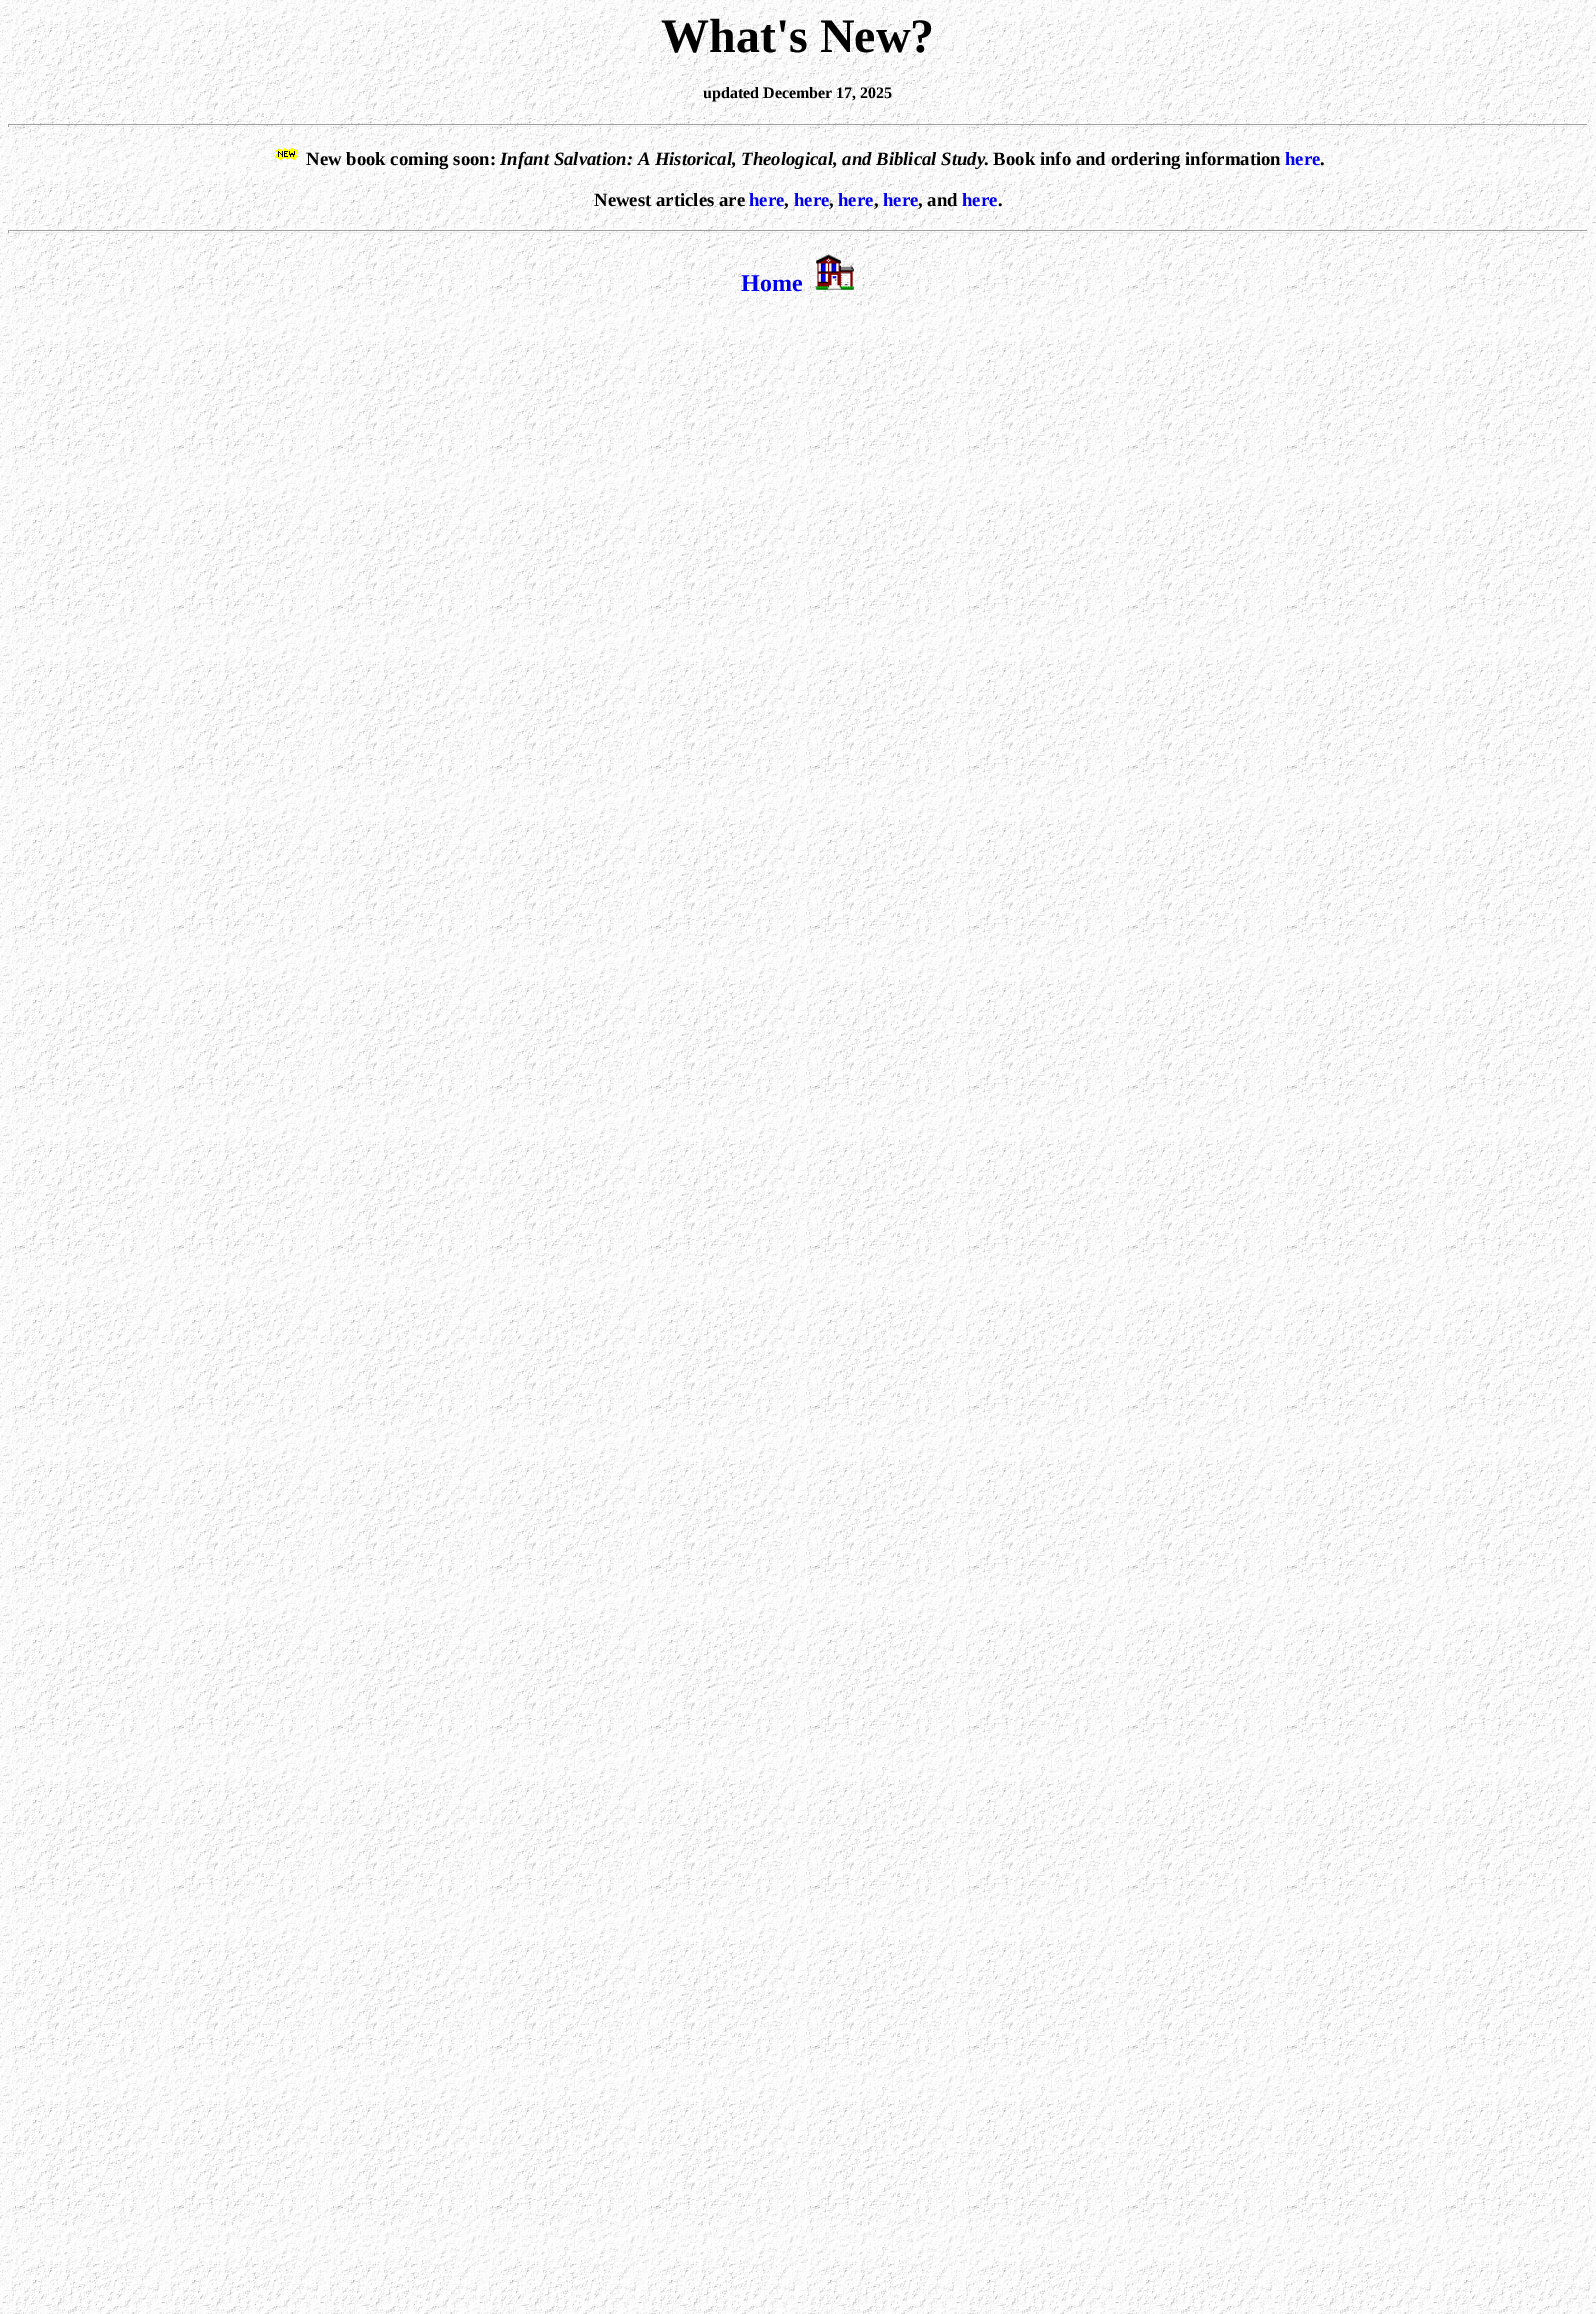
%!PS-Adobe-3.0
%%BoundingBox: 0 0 1596 2314
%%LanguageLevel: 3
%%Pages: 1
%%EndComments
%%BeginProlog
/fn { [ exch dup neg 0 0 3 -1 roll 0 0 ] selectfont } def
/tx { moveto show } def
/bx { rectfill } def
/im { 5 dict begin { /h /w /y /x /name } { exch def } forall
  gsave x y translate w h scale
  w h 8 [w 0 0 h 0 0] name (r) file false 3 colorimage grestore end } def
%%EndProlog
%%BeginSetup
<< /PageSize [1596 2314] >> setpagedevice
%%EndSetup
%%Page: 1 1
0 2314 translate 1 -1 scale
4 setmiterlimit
1 setgray
0 0 1596 2314 bx
(image0.raw) 0 0 1596 2314 im
/LiberationSerif-Bold 48 fn
0 setgray
(What's New?) 661 52 tx
/LiberationSerif-Bold 16 fn
(updated December 17, 2025) 703 98 tx
0.624 setgray
8 124 1580 1 bx
0.933 setgray
1587 124 1 3 bx
8 126 1580 1 bx
0.624 setgray
8 124 1 3 bx
(image1.raw) 275 148 23 12 im
/LiberationSerif-Bold 18.75 fn
0 setgray
(New book coming soon:) 306 165 tx
/LiberationSerif-BoldItalic 18.75 fn
(Infant Salvation: A Historical, Theological, and Biblical Study) 500 165 tx
/LiberationSerif-Bold 18.75 fn
(. Book info and ordering information) 984 165 tx
0 0 0.933 setrgbcolor
(here) 1285 165 tx
0 setgray
(.) 1320 165 tx
(Newest articles are) 594 206 tx
0 0 0.933 setrgbcolor
(here) 749 206 tx
0 setgray
(,) 784 206 tx
0 0 0.933 setrgbcolor
(here) 794 206 tx
0 setgray
(,) 829 206 tx
0 0 0.933 setrgbcolor
(here) 838 206 tx
0 setgray
(,) 874 206 tx
0 0 0.933 setrgbcolor
(here) 883 206 tx
0 setgray
(, and) 918 206 tx
0 0 0.933 setrgbcolor
(here) 962 206 tx
0 setgray
(.) 998 206 tx
0.624 setgray
8 230 1580 1 bx
0.933 setgray
1587 230 1 3 bx
8 232 1580 1 bx
0.624 setgray
8 230 1 3 bx
/LiberationSerif-Bold 24 fn
0 0 0.933 setrgbcolor
(Home) 741 291 tx
(image2.raw) 816 254 38 36 im
showpage
%%EOF
